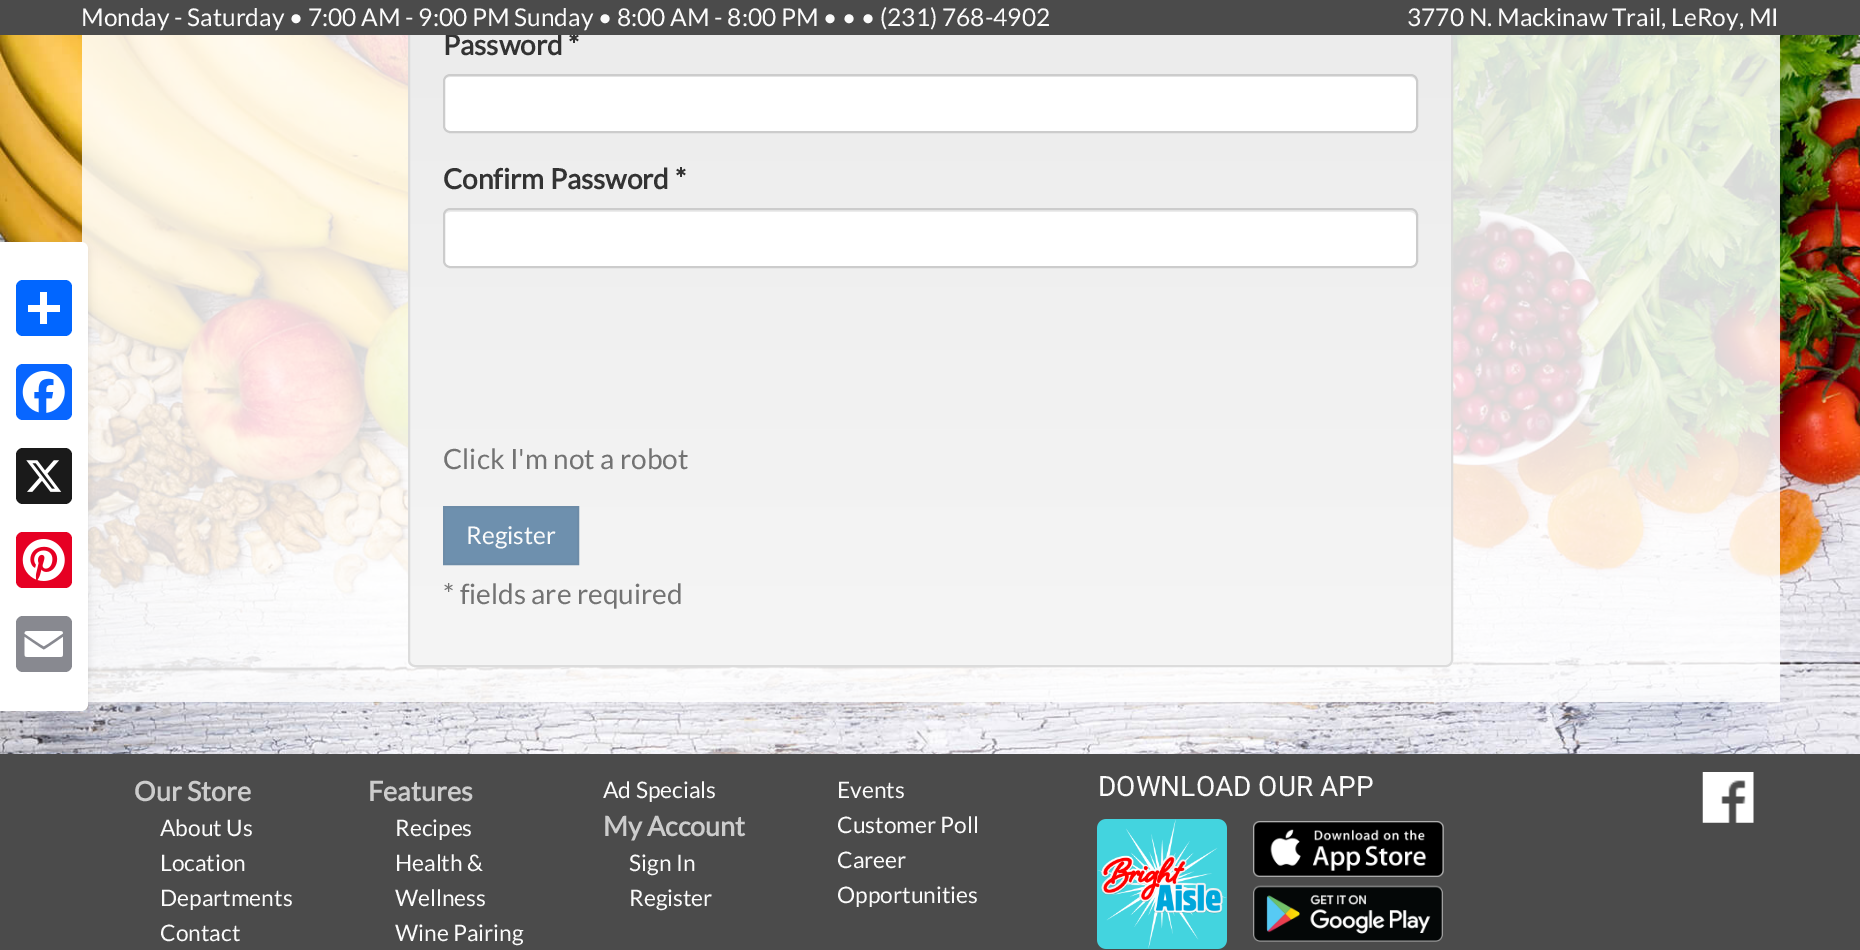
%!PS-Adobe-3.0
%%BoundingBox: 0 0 1860 950
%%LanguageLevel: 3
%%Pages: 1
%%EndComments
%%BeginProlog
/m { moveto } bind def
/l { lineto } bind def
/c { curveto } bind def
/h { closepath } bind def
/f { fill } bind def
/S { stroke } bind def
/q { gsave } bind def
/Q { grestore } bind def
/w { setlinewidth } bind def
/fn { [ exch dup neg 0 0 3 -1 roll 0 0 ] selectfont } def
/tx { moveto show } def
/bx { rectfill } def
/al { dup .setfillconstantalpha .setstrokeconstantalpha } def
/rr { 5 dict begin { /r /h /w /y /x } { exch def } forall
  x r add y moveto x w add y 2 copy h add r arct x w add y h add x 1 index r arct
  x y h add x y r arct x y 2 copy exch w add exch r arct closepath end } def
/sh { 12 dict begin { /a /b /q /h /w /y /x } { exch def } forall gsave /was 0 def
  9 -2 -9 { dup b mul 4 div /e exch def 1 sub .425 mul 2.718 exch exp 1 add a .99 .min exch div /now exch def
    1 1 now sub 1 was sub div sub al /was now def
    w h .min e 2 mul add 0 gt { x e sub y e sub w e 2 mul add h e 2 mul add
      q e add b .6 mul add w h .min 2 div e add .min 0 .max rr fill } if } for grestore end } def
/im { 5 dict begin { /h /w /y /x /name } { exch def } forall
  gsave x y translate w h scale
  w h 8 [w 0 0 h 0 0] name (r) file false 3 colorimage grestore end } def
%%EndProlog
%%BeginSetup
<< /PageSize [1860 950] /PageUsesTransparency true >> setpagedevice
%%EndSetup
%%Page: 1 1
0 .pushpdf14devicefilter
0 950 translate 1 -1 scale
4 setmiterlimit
1 setgray
0 0 1860 950 bx
(image0.raw) 0 35 1860 719 im
0.85 al
82 35 1698 667 bx
0.1 al
408 662 m 408 666 411 669 415 669 c 1446 669 l 1450 669 1453 666 1453 662 c 1453 -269 l 1452 -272 l 1452 660 l 1452 664 1449 667 1446 667 c 415 667 l 412 667 409 665 408 662 c h f
q
408 -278 1045 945 7 rr clip newpath
1 al
q 408 35 m 1453 35 l 1453 665 l 408 665 l h clip newpath
<< /ShadingType 2 /ColorSpace /DeviceRGB /Coords [930 -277 930 665] /Extend [true true] /Function << /FunctionType 2 /Domain [0 1] /C0 [0.91 0.91 0.91] /C1 [0.961 0.961 0.961] /N 1 >> >> shfill Q
Q
1 al
0.863 setgray
2 w
409 -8 1043 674 6 rr S
/Lato-Bold 28 fn
0.2 setgray
(Password *) 443 55 tx
0.294 setgray
0 0 1860 35 bx
/Lato-Regular 24.5 fn
0.984 setgray
(Monday - Saturday • 7:00 AM - 9:00 PM Sunday • 8:00 AM - 8:00 PM • • • \(231\) 768-4902) 81 26 tx
(3770 N. Mackinaw Trail, LeRoy, MI) 1407 26 tx
0 setgray
0 245 88 469 7 4.5 0.1 sh
1 setgray
0 242 m 81 242 l 85 242 88 245 88 249 c 88 704 l 88 708 85 711 81 711 c 0 711 l h f
0.004 0.4 1 setrgbcolor
16 280 56 56 7 rr f
1 setgray
40 292 7 32 bx
28 305 32 7 bx
0.031 0.4 1 setrgbcolor
16 364 56 56 7 rr f
(image1.raw) 22 371 43 42 im
0.102 setgray
16 448 56 56 7 rr f
(image2.raw) 26 460 36 32 im
0.902 0 0.137 setrgbcolor
16 532 56 56 7 rr f
(image3.raw) 22 539 43 42 im
0.533 0.537 0.565 setrgbcolor
16 616 56 56 7 rr f
(image4.raw) 24 631 39 26 im
1 setgray
443 74 975 59 7 rr f
0.925 setgray
450 77 m 1410 77 l 1413 77 1416 79 1416 82 c 1416 80 l 1416 77 1414 75 1411 75 c 450 75 l 448 75 445 77 445 79 c 446 78 448 77 450 77 c h f
0.8 setgray
444 75 973 57 6 rr S
/Lato-Bold 28 fn
0.2 setgray
(Confirm Password *) 443 189 tx
1 setgray
443 208 975 60 7 rr f
0.925 setgray
450 212 m 1410 212 l 1413 212 1416 214 1416 217 c 1416 215 l 1416 212 1414 210 1411 210 c 450 210 l 448 210 445 212 445 214 c 446 213 448 212 450 212 c h f
0.8 setgray
444 209 973 58 6 rr S
/Lato-Regular 28 fn
0.451 setgray
(Click I'm not a robot) 443 469 tx
0.431 0.565 0.682 setrgbcolor
444 507 m 578 507 l 578 564 l 444 564 l h q f Q
0.427 0.549 0.659 setrgbcolor
S
/Lato-Regular 24.5 fn
0.984 setgray
(Register) 466 544 tx
/Lato-Regular 28 fn
0.451 setgray
(* fields are required) 443 604 tx
0.294 setgray
0 754 1860 196 bx
/Lato-Bold 27 fn
0.8 setgray
(Our Store) 134 801 tx
/Lato-Regular 22.75 fn
0.984 setgray
(About Us) 160 836 tx
(Location) 160 871 tx
(Departments) 160 906 tx
(Contact) 160 941 tx
/Lato-Bold 27 fn
0.8 setgray
(Features) 368 801 tx
/Lato-Regular 22.75 fn
0.984 setgray
(Recipes) 395 836 tx
(Health &) 395 871 tx
(Wellness) 395 906 tx
(Wine Pairing) 395 941 tx
(Ad Specials) 603 798 tx
/Lato-Bold 27 fn
0.8 setgray
(My Account) 603 836 tx
/Lato-Regular 22.75 fn
0.984 setgray
(Sign In) 629 871 tx
(Register) 629 906 tx
(Events) 837 798 tx
(Customer Poll) 837 833 tx
(Career) 837 868 tx
(Opportunities) 837 903 tx
/Roboto-Regular 28 fn
(DOWNLOAD OUR APP) 1098 796 tx
0.263 0.831 0.875 setrgbcolor
1097 819 130 130 9 rr f
(image5.raw) 1097 819 130 130 im
(image6.raw) 1253 821 191 56 im
(image7.raw) 1253 885 190 57 im
(image8.raw) 1702 772 52 51 im
.poppdf14devicefilter showpage
%%EOF
